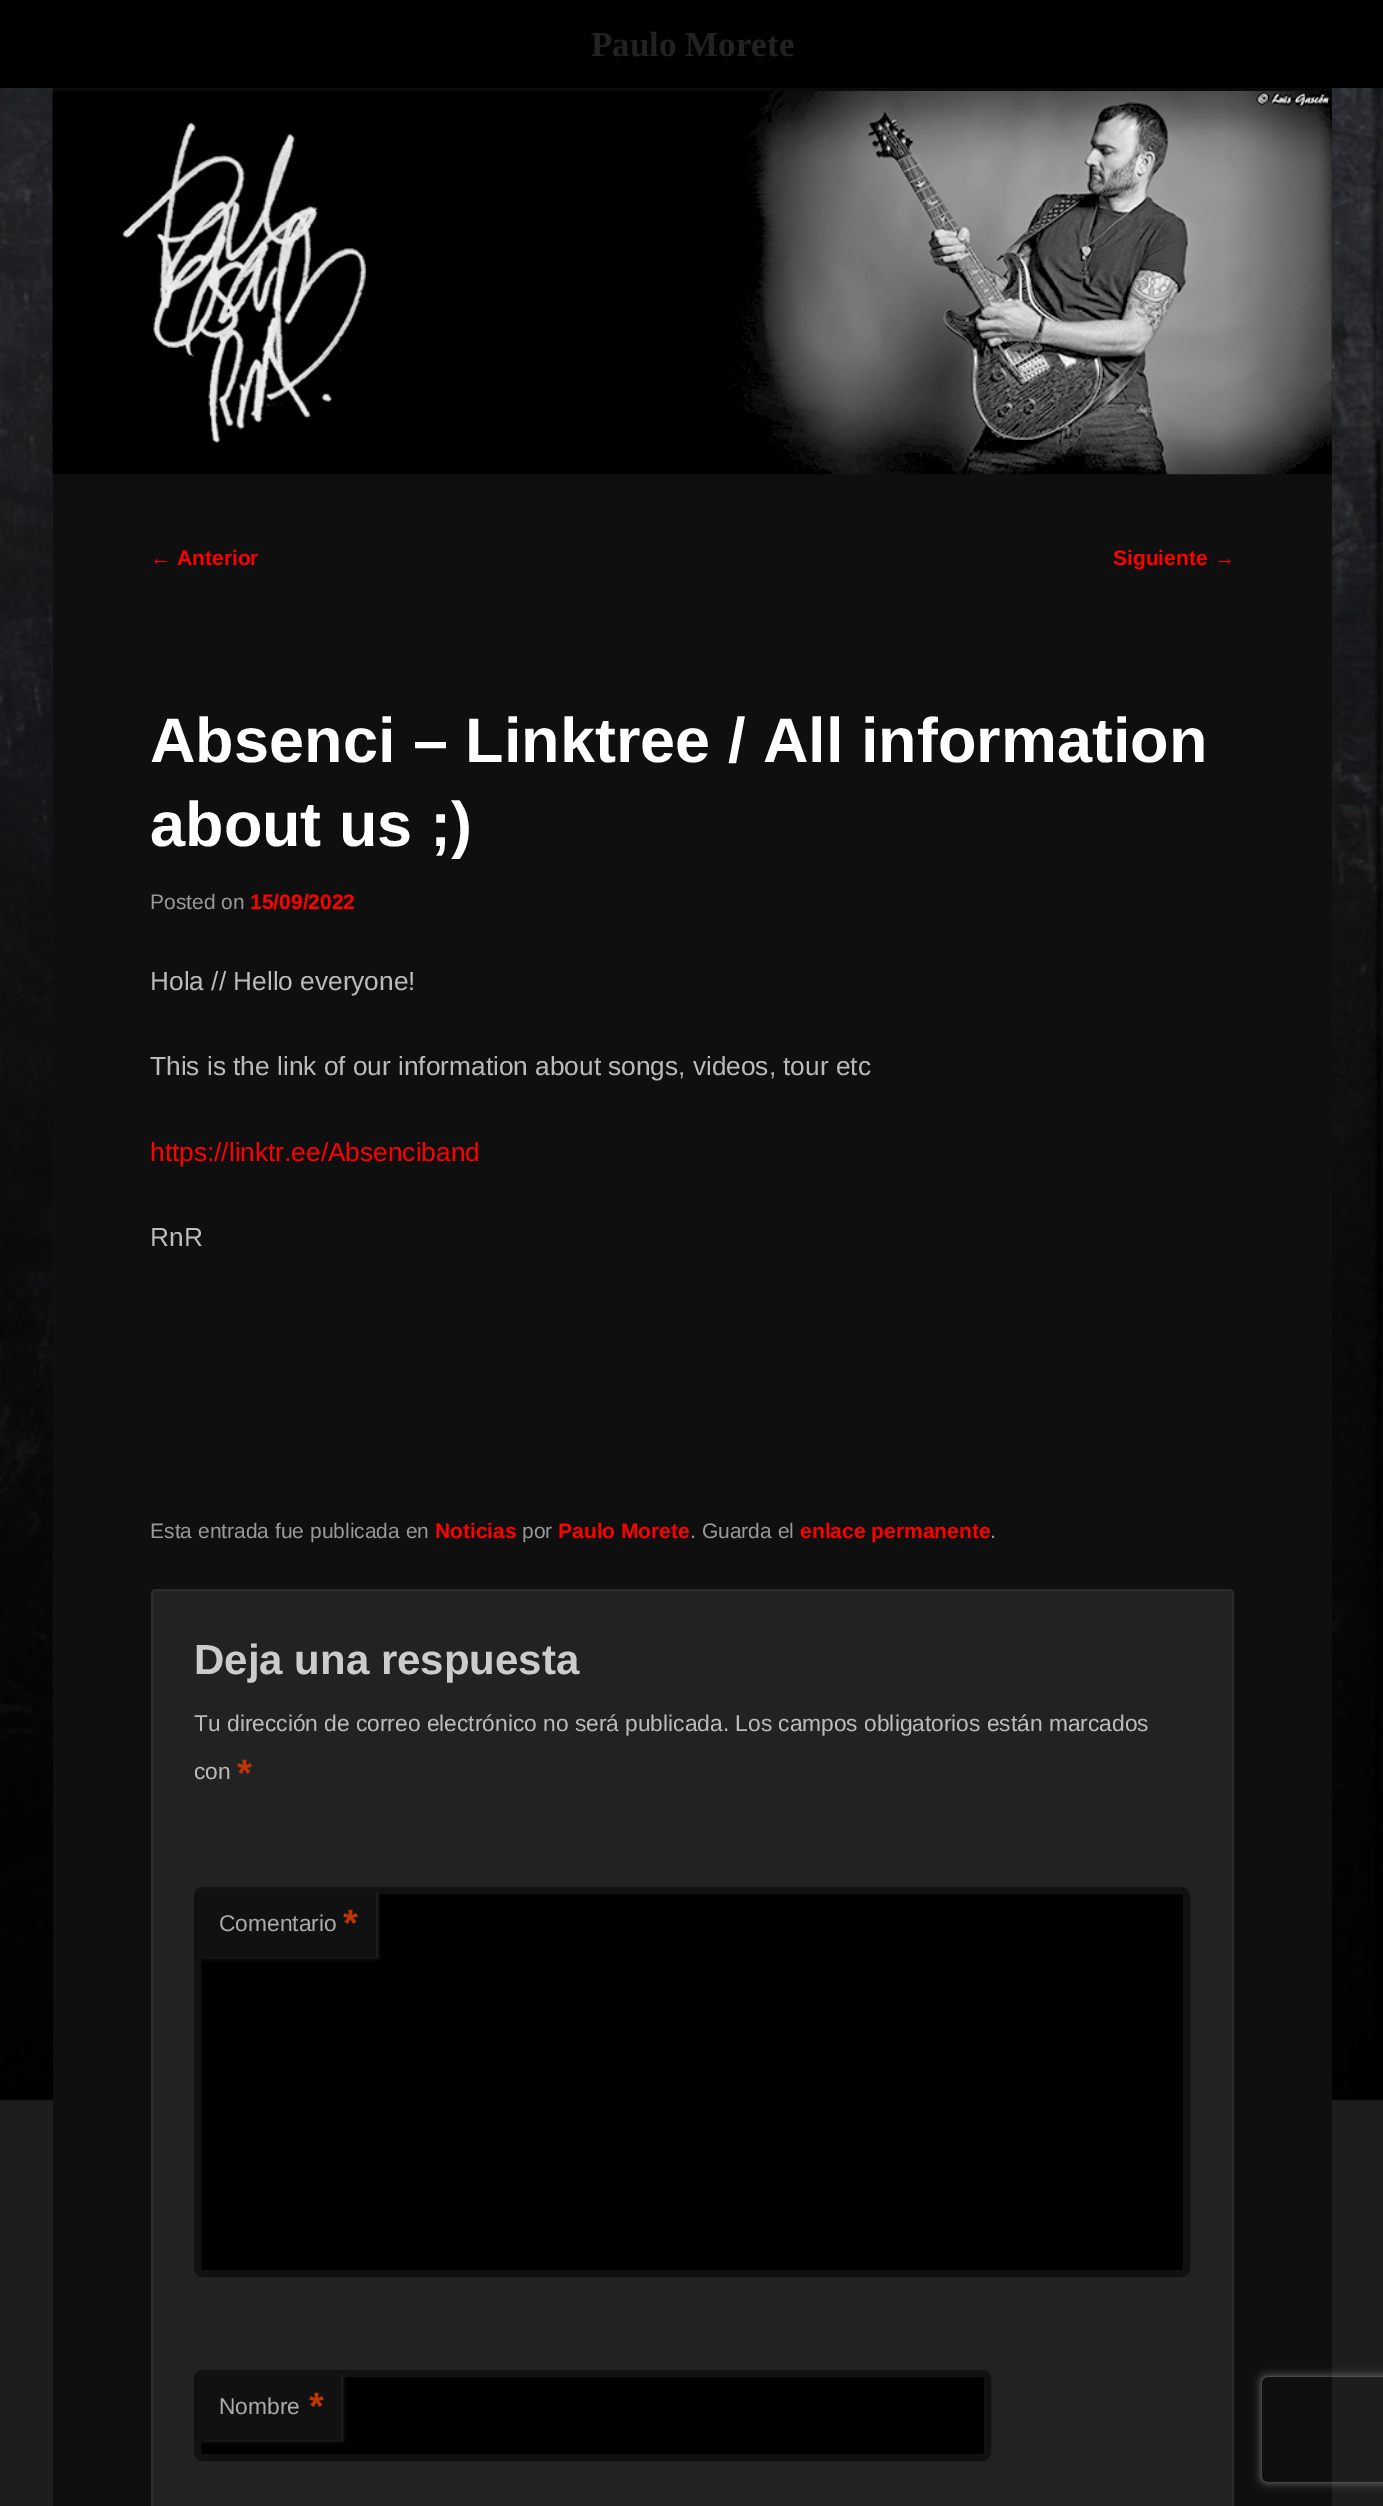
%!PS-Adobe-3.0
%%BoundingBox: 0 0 1383 2506
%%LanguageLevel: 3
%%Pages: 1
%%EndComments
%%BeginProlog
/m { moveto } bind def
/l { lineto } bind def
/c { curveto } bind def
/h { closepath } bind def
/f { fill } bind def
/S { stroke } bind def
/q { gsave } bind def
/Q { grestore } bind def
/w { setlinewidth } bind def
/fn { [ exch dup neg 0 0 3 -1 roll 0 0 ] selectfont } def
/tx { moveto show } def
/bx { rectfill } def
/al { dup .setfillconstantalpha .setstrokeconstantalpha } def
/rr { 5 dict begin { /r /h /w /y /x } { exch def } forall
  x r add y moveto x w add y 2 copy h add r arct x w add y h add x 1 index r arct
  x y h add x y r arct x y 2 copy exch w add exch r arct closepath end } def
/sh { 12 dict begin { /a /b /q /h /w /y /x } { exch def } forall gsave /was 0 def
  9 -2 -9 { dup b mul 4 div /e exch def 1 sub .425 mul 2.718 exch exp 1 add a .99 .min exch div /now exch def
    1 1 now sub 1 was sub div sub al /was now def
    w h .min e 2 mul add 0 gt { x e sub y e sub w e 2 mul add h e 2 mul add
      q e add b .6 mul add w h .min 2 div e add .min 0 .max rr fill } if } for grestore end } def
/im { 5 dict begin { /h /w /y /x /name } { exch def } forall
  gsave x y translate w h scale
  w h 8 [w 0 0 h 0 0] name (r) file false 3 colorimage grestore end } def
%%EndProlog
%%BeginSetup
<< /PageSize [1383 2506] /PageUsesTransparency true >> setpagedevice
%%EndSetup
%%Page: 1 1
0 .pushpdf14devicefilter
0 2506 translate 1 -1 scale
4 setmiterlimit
0.114 setgray
0 0 1383 2506 bx
(image0.raw) 0 88 1383 2013 im
0 setgray
0 0 1383 88 bx
/LiberationSerif-Bold 35 fn
0.133 setgray
(Paulo Morete) 591 56 tx
0.059 setgray
53 92 1279 2414 bx
0.039 setgray
53 88 1279 4 bx
(image1.raw) 52 91 1280 384 im
/LiberationSans-Regular 21 fn
1 0 0 setrgbcolor
(←) 150 565 tx
/LiberationSans-Bold 21 fn
(Anterior) 177 565 tx
(Siguiente) 1113 565 tx
/LiberationSans-Regular 21 fn
(→) 1214 565 tx
/LiberationSans-Bold 63 fn
1 setgray
(Absenci – Linktree / All information) 150 762 tx
(about us ;\)) 150 846 tx
/LiberationSans-Regular 21 fn
0.6 setgray
(Posted on) 150 909 tx
/LiberationSans-Bold 21 fn
1 0 0 setrgbcolor
(15/09/2022) 250 909 tx
/LiberationSans-Regular 26.25 fn
0.733 setgray
(Hola // Hello everyone!) 150 990 tx
(This is the link of our information about songs, videos, tour etc) 150 1075 tx
1 0 0 setrgbcolor
(https://linktr.ee/Absenciband) 150 1161 tx
0.733 setgray
(RnR) 150 1246 tx
/LiberationSans-Regular 21 fn
0.6 setgray
(Esta entrada fue publicada en) 150 1538 tx
/LiberationSans-Bold 21 fn
1 0 0 setrgbcolor
(Noticias) 435 1538 tx
/LiberationSans-Regular 21 fn
0.6 setgray
(por) 522 1538 tx
/LiberationSans-Bold 21 fn
1 0 0 setrgbcolor
(Paulo Morete) 558 1538 tx
/LiberationSans-Regular 21 fn
0.6 setgray
(. Guarda el) 690 1538 tx
/LiberationSans-Bold 21 fn
1 0 0 setrgbcolor
(enlace permanente) 800 1538 tx
/LiberationSans-Regular 21 fn
0.6 setgray
(.) 990 1538 tx
0.133 setgray
152 1590 1081 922 4 rr q f Q
0.173 setgray
2 w
S
/LiberationSans-Bold 42 fn
0.8 setgray
(Deja una respuesta) 194 1674 tx
/LiberationSans-Regular 22.75 fn
0.733 setgray
(Tu dirección de correo electrónico no será publicada. Los campos obligatorios están marcados) 194 1731 tx
(con) 194 1779 tx
/LiberationSans-Bold 38 fn
0.741 0.208 0 setrgbcolor
(*) 237 1786 tx
0 setgray
197.5 1890.5 989 383 5.5 rr q f Q
0.067 setgray
7 w
S
0.2 setgray
203 1894 175 64 0 2 0.8 sh
0.067 setgray
201 1892 175 65 bx
/LiberationSans-Regular 22.75 fn
0.667 setgray
(Comentario) 219 1931 tx
/LiberationSans-Bold 38 fn
0.741 0.208 0 setrgbcolor
(*) 343 1936 tx
0 setgray
197.5 2373.5 790 84 5.5 rr q f Q
0.067 setgray
S
0.2 setgray
203 2377 140 64 0 2 0.8 sh
0.067 setgray
201 2375 140 65 bx
/LiberationSans-Regular 22.75 fn
0.667 setgray
(Nombre) 219 2414 tx
/LiberationSans-Bold 38 fn
0.741 0.208 0 setrgbcolor
(*) 309 2419 tx
q
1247 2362 m 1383 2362 l 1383 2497 l 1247 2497 l h 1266 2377 m 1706 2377 l 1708 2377 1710 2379 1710 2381 c 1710 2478 l 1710 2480 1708 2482 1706 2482 c 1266 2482 l 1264 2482 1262 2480 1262 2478 c 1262 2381 l 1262 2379 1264 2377 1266 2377 c h eoclip newpath
0.502 setgray
1262 2377 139 105 4 4.5 1 sh
Q
.poppdf14devicefilter showpage
%%EOF
